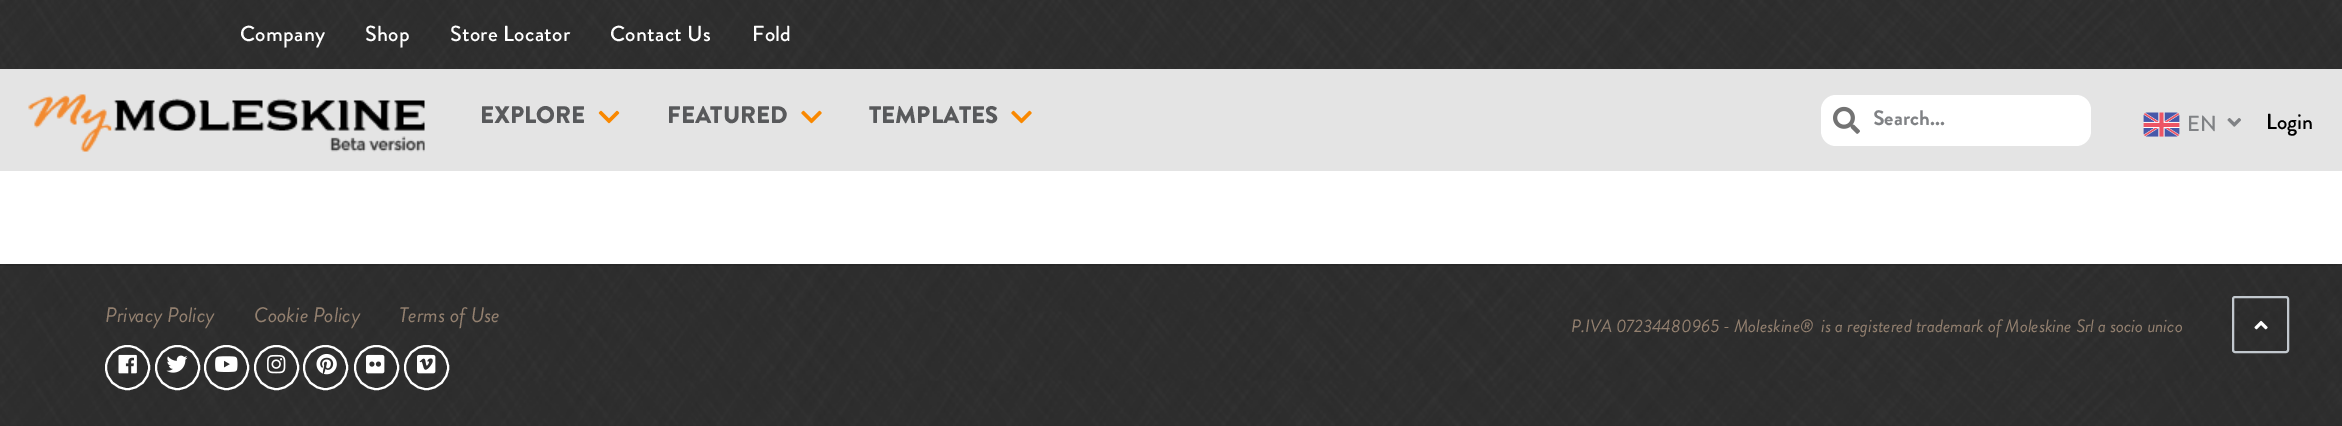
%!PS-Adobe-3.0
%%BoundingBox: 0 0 2342 426
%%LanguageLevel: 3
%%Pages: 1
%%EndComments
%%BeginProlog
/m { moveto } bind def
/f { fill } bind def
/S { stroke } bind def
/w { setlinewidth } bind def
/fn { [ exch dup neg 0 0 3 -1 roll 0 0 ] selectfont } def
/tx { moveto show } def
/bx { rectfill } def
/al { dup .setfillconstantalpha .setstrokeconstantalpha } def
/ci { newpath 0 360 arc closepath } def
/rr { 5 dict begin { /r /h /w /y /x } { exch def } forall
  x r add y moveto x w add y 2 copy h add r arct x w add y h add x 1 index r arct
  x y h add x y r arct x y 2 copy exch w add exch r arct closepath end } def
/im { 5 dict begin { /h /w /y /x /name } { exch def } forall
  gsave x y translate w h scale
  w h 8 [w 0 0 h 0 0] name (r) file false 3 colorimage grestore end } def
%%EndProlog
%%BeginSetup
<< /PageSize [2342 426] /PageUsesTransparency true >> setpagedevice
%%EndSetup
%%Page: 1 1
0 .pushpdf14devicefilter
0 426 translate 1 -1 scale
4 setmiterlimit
1 setgray
0 0 2342 426 bx
0.894 setgray
0 69 2342 102 bx
(image0.raw) 0 0 2342 69 im
/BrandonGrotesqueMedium-Medium 21.75 fn
1 setgray
240 41 m 0.3 0 (Company) ashow
365 41 m 0.3 0 (Shop) ashow
450 41 m 0.3 0 (Store Locator) ashow
610 41 m 0.3 0 (Contact Us) ashow
752 41 m 0.3 0 (Fold) ashow
(image1.raw) 28 94 397 58 im
/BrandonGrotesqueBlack-Black 24 fn
0.345 0.349 0.357 setrgbcolor
(EXPLORE) 480 123 tx
(image2.raw) 598 110 22 14 im
(FEATURED) 667 123 tx
(image3.raw) 801 110 21 14 im
(TEMPLATES) 869 123 tx
(image3.raw) 1011 110 21 14 im
1 setgray
1821 95 270 51 15 rr f
(image4.raw) 1833 106 27 28 im
/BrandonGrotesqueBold-Bold 21 fn
0.502 0.51 0.522 setrgbcolor
(Search...) 1873 125 tx
(image5.raw) 2143 112 37 25 im
/BrandonGrotesqueMedium-Medium 21.75 fn
(EN) 2187 131 tx
(image6.raw) 2227 118 14 9 im
0 setgray
(Login) 2266 129 tx
(image7.raw) 0 264 2342 162 im
0.11 al
0 264 2342 2 bx
/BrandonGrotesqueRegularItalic-Italic 21 fn
1 al
0.576 0.502 0.435 setrgbcolor
(Privacy Policy) 105 322 tx
(Cookie Policy) 254 322 tx
(Terms of Use) 399 322 tx
1 setgray
2 w
127.5 367.5 21.5 ci S
(image8.raw) 118 354 19 20 im
177.5 367.5 21.5 ci S
(image9.raw) 166 355 22 18 im
226.5 367.5 21.5 ci S
(image10.raw) 215 356 23 16 im
276.5 367.5 21.5 ci S
(image11.raw) 267 354 19 20 im
325.5 367.5 21.5 ci S
(image12.raw) 316 353 21 22 im
376.5 367.5 21.5 ci S
(image13.raw) 366 354 19 20 im
426.5 367.5 21.5 ci S
(image14.raw) 417 354 19 20 im
/BrandonGrotesqueRegularItalic-Italic 18 fn
0.576 0.502 0.435 setrgbcolor
(P.IVA 07234480965 - Moleskine®  is a registered trademark of Moleskine Srl a socio unico) 1571 332 tx
0.761 0.784 0.808 setrgbcolor
2233 297 55 55 2 rr S
(image15.raw) 2254 320 14 10 im
.poppdf14devicefilter showpage
%%EOF
